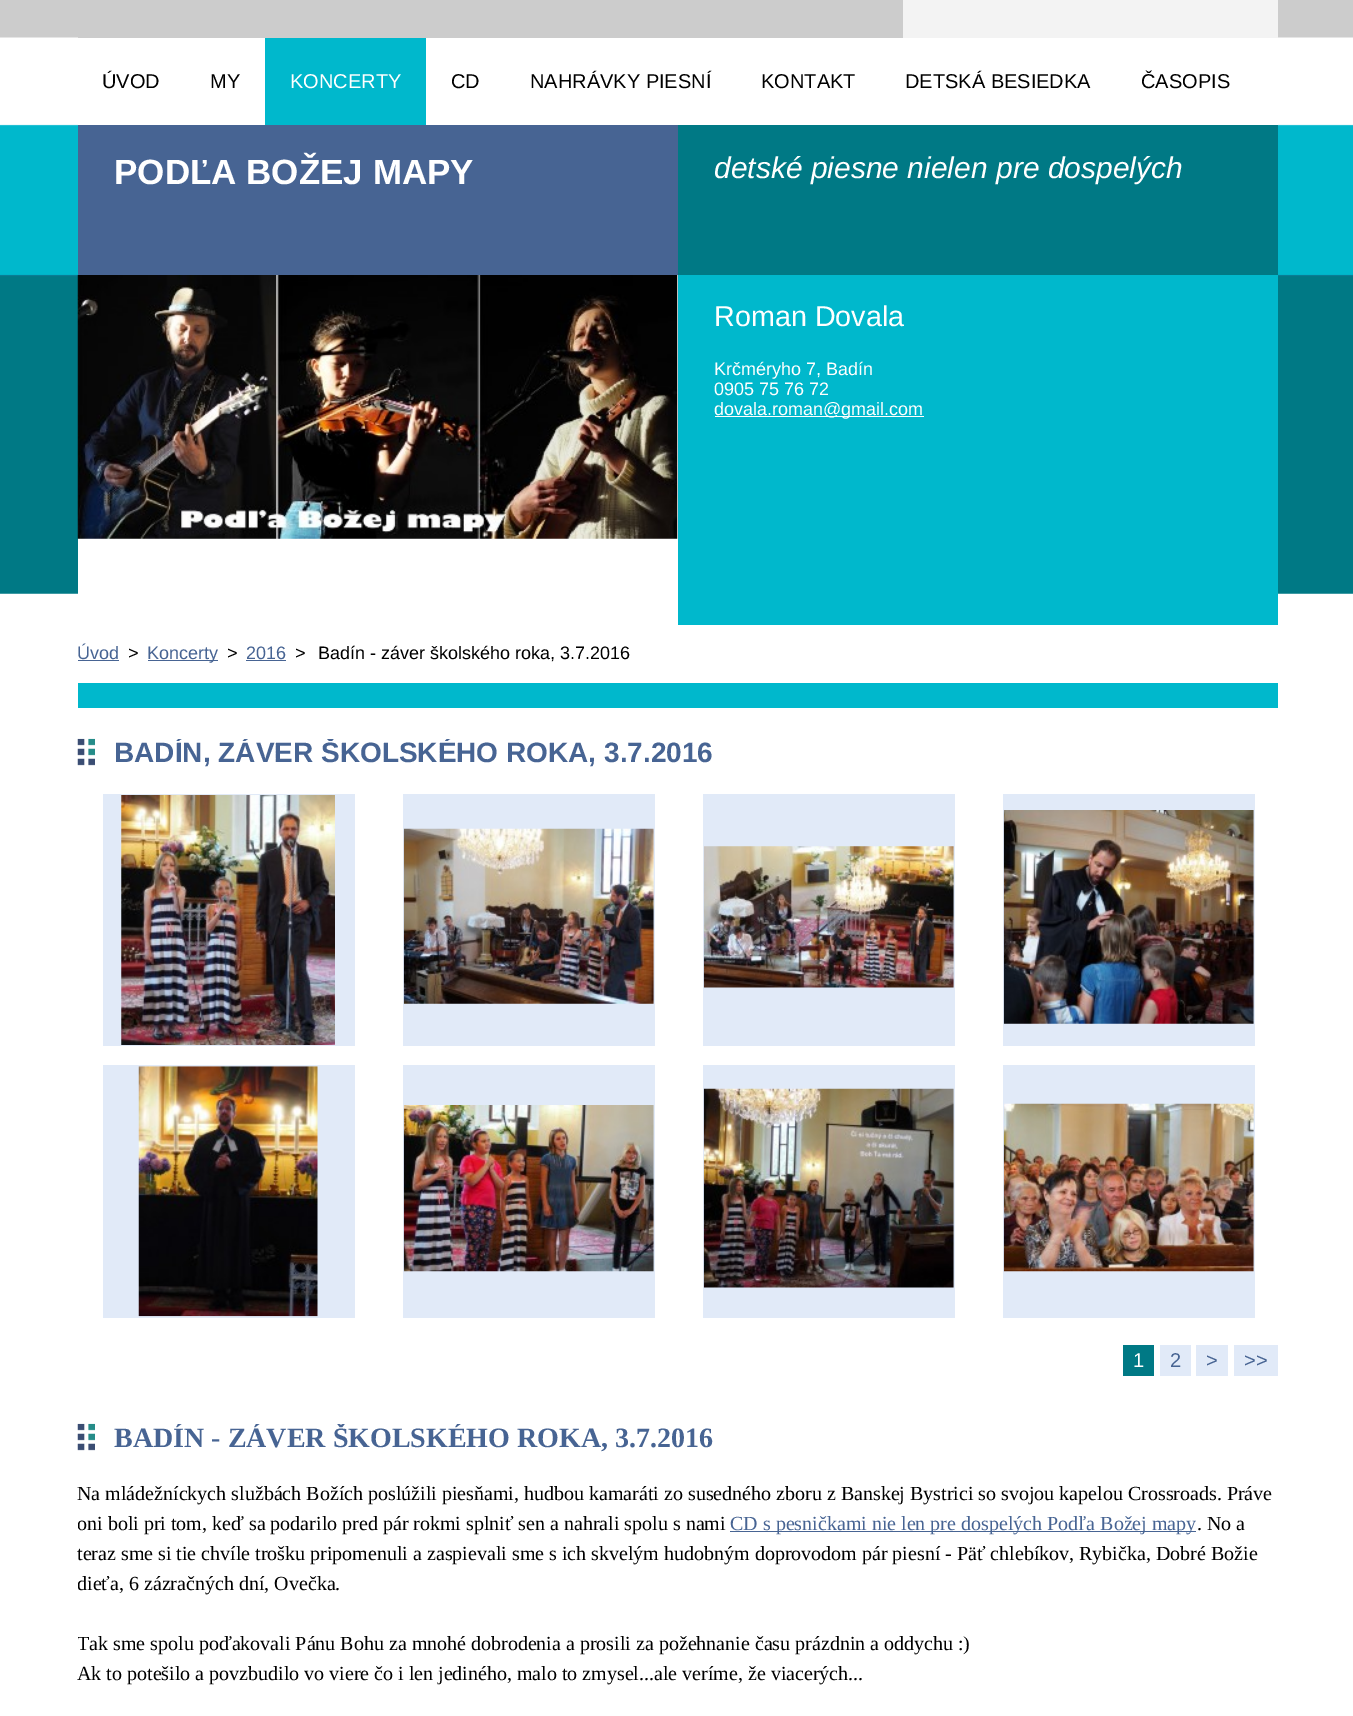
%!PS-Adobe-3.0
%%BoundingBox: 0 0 1353 1716
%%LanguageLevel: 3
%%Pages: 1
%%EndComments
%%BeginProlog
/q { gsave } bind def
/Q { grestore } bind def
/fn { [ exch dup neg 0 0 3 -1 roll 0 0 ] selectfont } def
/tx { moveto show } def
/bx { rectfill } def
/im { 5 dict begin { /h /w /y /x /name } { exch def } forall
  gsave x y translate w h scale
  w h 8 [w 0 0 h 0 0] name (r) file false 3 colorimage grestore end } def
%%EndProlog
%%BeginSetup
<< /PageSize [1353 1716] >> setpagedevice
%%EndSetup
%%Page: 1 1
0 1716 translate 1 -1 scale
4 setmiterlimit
1 setgray
0 0 1353 1716 bx
(image0.raw) 0 0 1353 594 im
0.8 setgray
78 37 825 1 bx
0.953 setgray
903 0 375 38 bx
1 setgray
78 124 1200 1 bx
/LiberationSans-Regular 20 fn
0 setgray
(ÚVOD) 102 88 tx
(MY) 210 88 tx
0 0.722 0.8 setrgbcolor
265 38 161 87 bx
1 setgray
(KONCERTY) 290 88 tx
0 setgray
(CD) 451 88 tx
(NAHRÁVKY PIESNÍ) 530 88 tx
(KONTAKT) 761 88 tx
(DETSKÁ BESIEDKA) 905 88 tx
(ČASOPIS) 1141 88 tx
0.278 0.392 0.576 setrgbcolor
78 125 600 150 bx
/LiberationSans-Bold 35 fn
1 setgray
(PODĽA BOŽEJ MAPY) 114 184 tx
0 0.475 0.522 setrgbcolor
678 125 600 150 bx
/LiberationSans-Italic 30 fn
1 setgray
(detské piesne nielen pre dospelých) 714 178 tx
78 275 600 319 bx
(image1.raw) 77 275 601 264 im
0 0.722 0.8 setrgbcolor
678 275 600 350 bx
/LiberationSans-Regular 28.75 fn
1 setgray
(Roman Dovala) 714 326 tx
/LiberationSans-Regular 18 fn
(Krčméryho 7, Badín) 714 375 tx
(0905 75 76 72) 714 395 tx
715 416 161 1 bx
(dovala.roman@gmail.com) 714 415 tx
876 416 48 1 bx
0.278 0.392 0.576 setrgbcolor
(Úvod) 77 659 tx
78 660 41 1 bx
0 setgray
(>) 128 659 tx
0.278 0.392 0.576 setrgbcolor
148 660 70 1 bx
(Koncerty) 147 659 tx
0 setgray
(>) 227 659 tx
0.278 0.392 0.576 setrgbcolor
(2016) 246 659 tx
246 660 40 1 bx
0 setgray
(>) 295 659 tx
(Badín - záver školského roka, 3.7.2016) 318 659 tx
0 0.722 0.8 setrgbcolor
78 683 1200 25 bx
(image2.raw) 77 738 18 28 im
q
78 739 1200 647 rectclip
/LiberationSans-Bold 28 fn
0.278 0.392 0.576 setrgbcolor
(BADÍN, ZÁVER ŠKOLSKÉHO ROKA, 3.7.2016) 114 762 tx
Q
0.882 0.918 0.973 setrgbcolor
103 794 252 252 bx
(image3.raw) 121 795 214 250 im
403 794 252 252 bx
(image4.raw) 403 828 251 176 im
703 794 252 252 bx
(image5.raw) 703 846 251 142 im
1003 794 252 252 bx
(image6.raw) 1003 810 251 214 im
103 1065 252 253 bx
(image7.raw) 138 1066 180 251 im
403 1065 252 253 bx
(image8.raw) 403 1105 251 167 im
703 1065 252 253 bx
(image9.raw) 703 1088 251 200 im
1003 1065 252 253 bx
(image10.raw) 1003 1103 251 169 im
0 0.475 0.522 setrgbcolor
1123 1345 31 31 bx
/LiberationSans-Regular 20 fn
1 setgray
(1) 1133 1367 tx
0.882 0.918 0.973 setrgbcolor
1160 1345 31 31 bx
0.278 0.392 0.576 setrgbcolor
(2) 1170 1367 tx
0.882 0.918 0.973 setrgbcolor
1196 1345 32 31 bx
0.278 0.392 0.576 setrgbcolor
(>) 1206 1367 tx
0.882 0.918 0.973 setrgbcolor
1234 1345 44 31 bx
0.278 0.392 0.576 setrgbcolor
(>>) 1244 1367 tx
(image2.raw) 77 1423 18 28 im
q
78 1424 1200 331 rectclip
/LiberationSerif-Bold 28 fn
(BADÍN - ZÁVER ŠKOLSKÉHO ROKA, 3.7.2016) 114 1447 tx
Q
/LiberationSerif-Regular 20 fn
0 setgray
(Na mládežníckych službách Božích poslúžili piesňami, hudbou kamaráti zo susedného zboru z Banskej Bystrici so svojou kapelou Crossroads. Práve) 77 1500 tx
q
78 1424 1200 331 rectclip
(oni boli pri tom, keď sa podarilo pred pár rokmi splniť sen a nahrali spolu s nami) 77 1530 tx
Q
0.278 0.392 0.576 setrgbcolor
730 1531 466 1 bx
(CD s pesničkami nie len pre dospelých Podľa Božej mapy) 730 1530 tx
0 setgray
(. No a) 1197 1530 tx
(teraz sme si tie chvíle trošku pripomenuli a zaspievali sme s ich skvelým hudobným doprovodom pár piesní - Päť chlebíkov, Rybička, Dobré Božie) 77 1560 tx
q
78 1424 1200 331 rectclip
(dieťa, 6 zázračných dní, Ovečka.) 77 1590 tx
(Tak sme spolu poďakovali Pánu Bohu za mnohé dobrodenia a prosili za požehnanie času prázdnin a oddychu :\)) 77 1650 tx
Q
(Ak to potešilo a povzbudilo vo viere čo i len jediného, malo to zmysel...ale veríme, že viacerých...) 77 1680 tx
showpage
%%EOF
